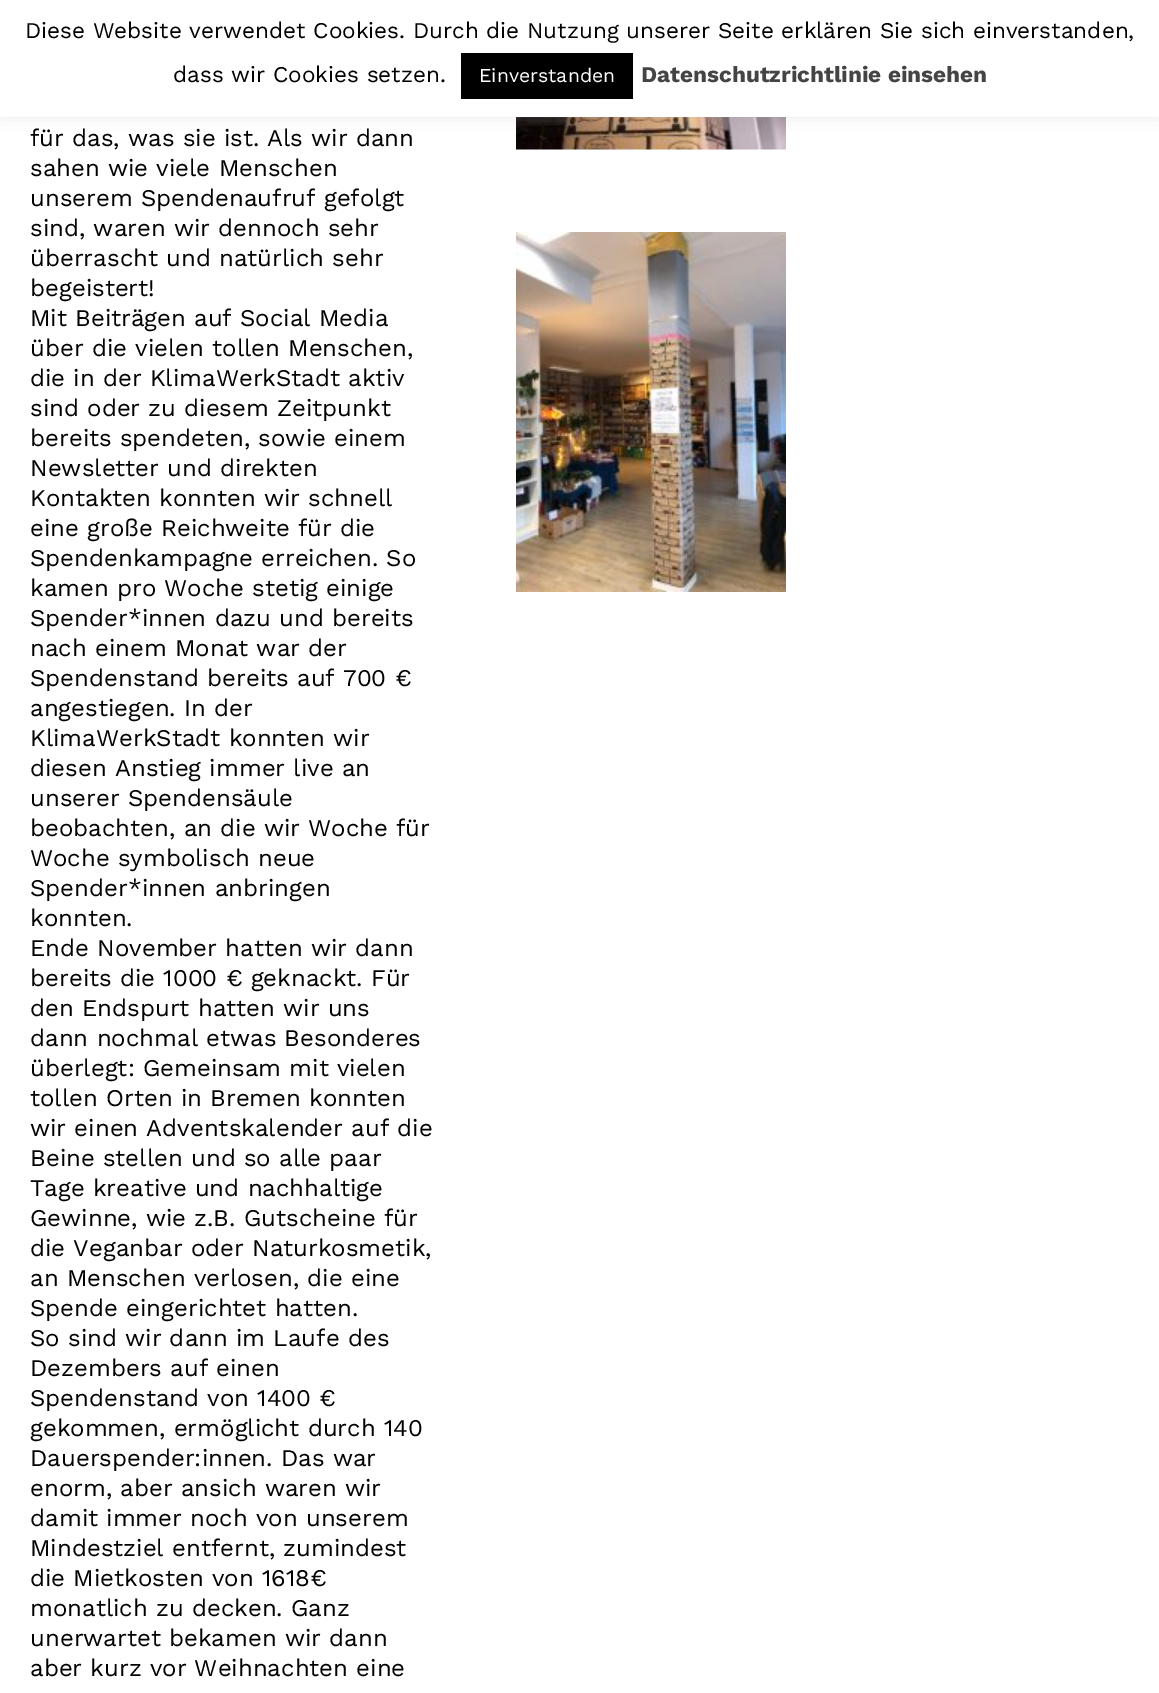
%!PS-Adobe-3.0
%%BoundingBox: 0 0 1159 1693
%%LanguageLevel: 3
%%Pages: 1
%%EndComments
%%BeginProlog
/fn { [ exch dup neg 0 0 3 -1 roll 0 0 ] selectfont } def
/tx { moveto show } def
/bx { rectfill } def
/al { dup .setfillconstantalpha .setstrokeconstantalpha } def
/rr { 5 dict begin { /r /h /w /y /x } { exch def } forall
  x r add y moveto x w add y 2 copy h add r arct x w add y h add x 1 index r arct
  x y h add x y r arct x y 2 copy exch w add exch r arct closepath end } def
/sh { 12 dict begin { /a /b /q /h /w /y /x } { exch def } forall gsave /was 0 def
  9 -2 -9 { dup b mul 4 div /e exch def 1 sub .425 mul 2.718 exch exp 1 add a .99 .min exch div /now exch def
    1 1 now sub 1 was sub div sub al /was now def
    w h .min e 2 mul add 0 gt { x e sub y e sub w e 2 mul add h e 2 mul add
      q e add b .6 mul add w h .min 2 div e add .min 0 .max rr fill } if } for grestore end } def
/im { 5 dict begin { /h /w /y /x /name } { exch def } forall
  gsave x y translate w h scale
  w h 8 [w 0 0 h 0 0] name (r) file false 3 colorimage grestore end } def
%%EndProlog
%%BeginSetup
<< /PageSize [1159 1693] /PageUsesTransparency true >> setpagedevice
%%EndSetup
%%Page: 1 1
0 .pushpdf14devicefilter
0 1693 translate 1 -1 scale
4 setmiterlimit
1 setgray
0 0 1159 1693 bx
(image0.raw) 516 117 270 33 im
0.675 0.671 0.671 setrgbcolor
0 -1 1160 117 0 7.5 0.3 sh
1 setgray
0 0 1159 117 bx
/WorkSans-Regular 22.5 fn
0 setgray
(Diese Website verwendet Cookies. Durch die Nutzung unserer Seite erklären Sie sich einverstanden,) 25 38 tx
(dass wir Cookies setzen.) 173 82 tx
461 53 172 46 bx
/WorkSans-Regular 19.5 fn
1 setgray
(Einverstanden) 479 82 tx
/WorkSans-Bold 22.5 fn
0.267 setgray
(Datenschutzrichtlinie einsehen) 641 82 tx
/WorkSans-Regular 24 fn
0 setgray
(für das, was sie ist. Als wir dann) 30 146 tx
(sahen wie viele Menschen) 30 176 tx
(unserem Spendenaufruf gefolgt) 30 206 tx
(sind, waren wir dennoch sehr) 30 236 tx
(überrascht und natürlich sehr) 30 266 tx
(begeistert!) 30 296 tx
(Mit Beiträgen auf Social Media) 30 326 tx
(über die vielen tollen Menschen,) 30 356 tx
(die in der KlimaWerkStadt aktiv) 30 386 tx
(sind oder zu diesem Zeitpunkt) 30 416 tx
(bereits spendeten, sowie einem) 30 446 tx
(Newsletter und direkten) 30 476 tx
(Kontakten konnten wir schnell) 30 506 tx
(eine große Reichweite für die) 30 536 tx
(Spendenkampagne erreichen. So) 30 566 tx
(kamen pro Woche stetig einige) 30 596 tx
(Spender*innen dazu und bereits) 30 626 tx
(nach einem Monat war der) 30 656 tx
(Spendenstand bereits auf 700 €) 30 686 tx
(angestiegen. In der) 30 716 tx
(KlimaWerkStadt konnten wir) 30 746 tx
(diesen Anstieg immer live an) 30 776 tx
(unserer Spendensäule) 30 806 tx
(beobachten, an die wir Woche für) 30 836 tx
(Woche symbolisch neue) 30 866 tx
(Spender*innen anbringen) 30 896 tx
(konnten.) 30 926 tx
(Ende November hatten wir dann) 30 956 tx
(bereits die 1000 € geknackt. Für) 30 986 tx
(den Endspurt hatten wir uns) 30 1016 tx
(dann nochmal etwas Besonderes) 30 1046 tx
(überlegt: Gemeinsam mit vielen) 30 1076 tx
(tollen Orten in Bremen konnten) 30 1106 tx
(wir einen Adventskalender auf die) 30 1136 tx
(Beine stellen und so alle paar) 30 1166 tx
(Tage kreative und nachhaltige) 30 1196 tx
(Gewinne, wie z.B. Gutscheine für) 30 1226 tx
(die Veganbar oder Naturkosmetik,) 30 1256 tx
(an Menschen verlosen, die eine) 30 1286 tx
(Spende eingerichtet hatten.) 30 1316 tx
(So sind wir dann im Laufe des) 30 1346 tx
(Dezembers auf einen) 30 1376 tx
(Spendenstand von 1400 €) 30 1406 tx
(gekommen, ermöglicht durch 140) 30 1436 tx
(Dauerspender:innen. Das war) 30 1466 tx
(enorm, aber ansich waren wir) 30 1496 tx
(damit immer noch von unserem) 30 1526 tx
(Mindestziel entfernt, zumindest) 30 1556 tx
(die Mietkosten von 1618€) 30 1586 tx
(monatlich zu decken. Ganz) 30 1616 tx
(unerwartet bekamen wir dann) 30 1646 tx
(aber kurz vor Weihnachten eine) 30 1676 tx
(image1.raw) 516 232 270 360 im
.poppdf14devicefilter showpage
%%EOF
